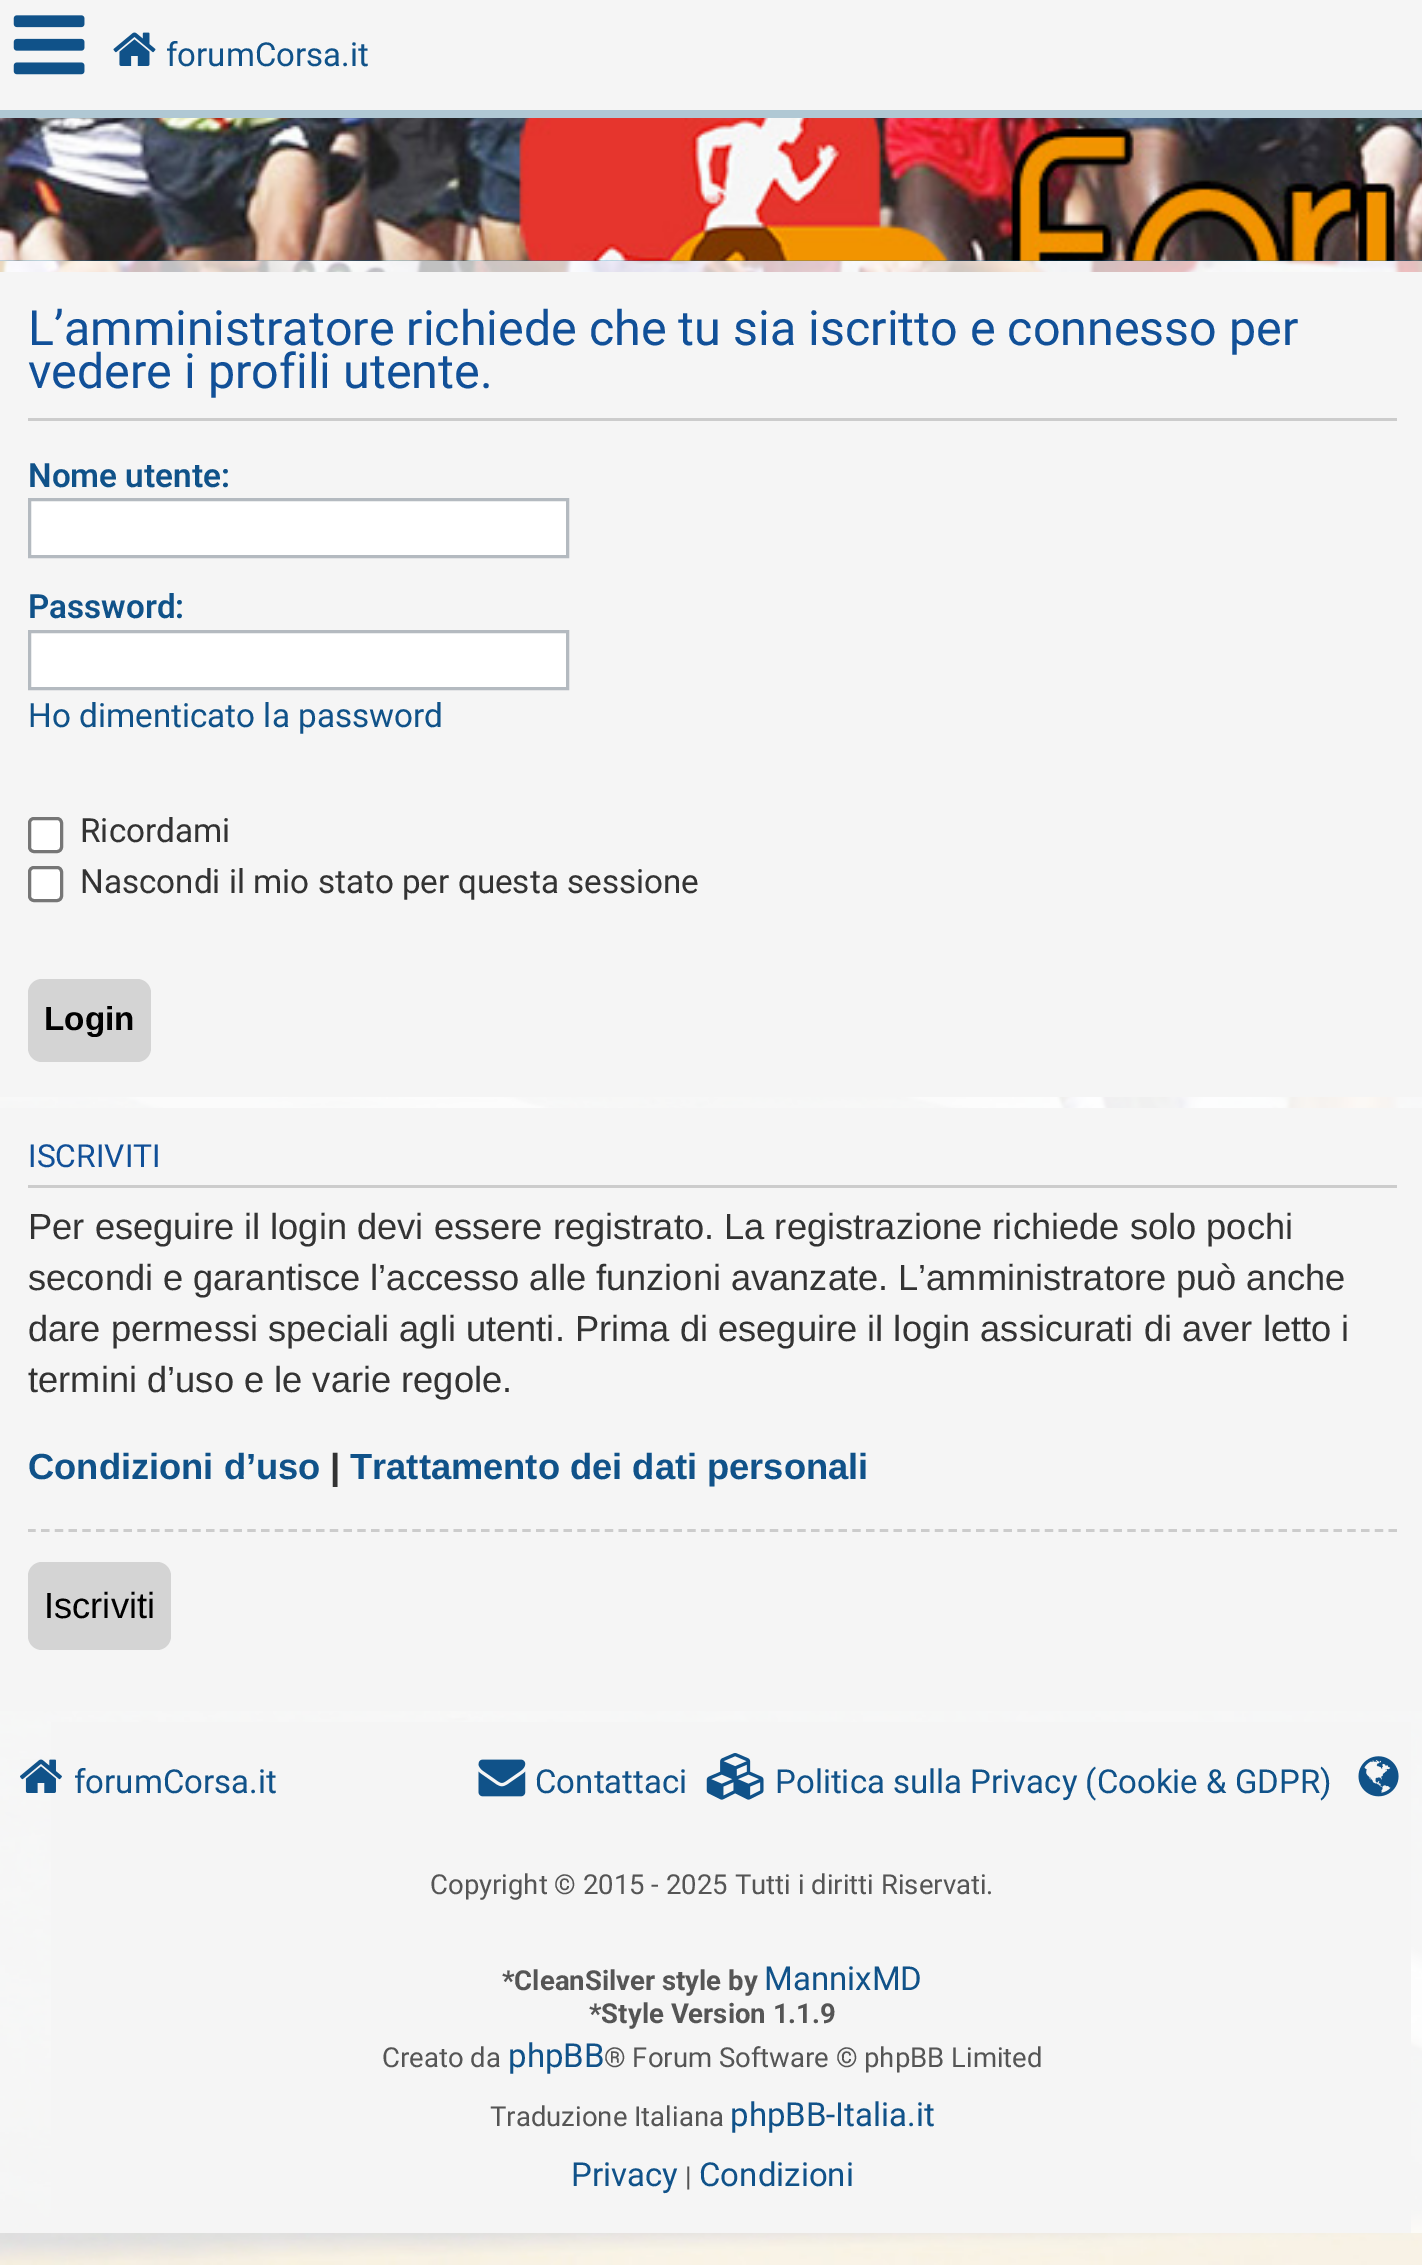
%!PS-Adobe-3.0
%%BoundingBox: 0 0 1422 2265
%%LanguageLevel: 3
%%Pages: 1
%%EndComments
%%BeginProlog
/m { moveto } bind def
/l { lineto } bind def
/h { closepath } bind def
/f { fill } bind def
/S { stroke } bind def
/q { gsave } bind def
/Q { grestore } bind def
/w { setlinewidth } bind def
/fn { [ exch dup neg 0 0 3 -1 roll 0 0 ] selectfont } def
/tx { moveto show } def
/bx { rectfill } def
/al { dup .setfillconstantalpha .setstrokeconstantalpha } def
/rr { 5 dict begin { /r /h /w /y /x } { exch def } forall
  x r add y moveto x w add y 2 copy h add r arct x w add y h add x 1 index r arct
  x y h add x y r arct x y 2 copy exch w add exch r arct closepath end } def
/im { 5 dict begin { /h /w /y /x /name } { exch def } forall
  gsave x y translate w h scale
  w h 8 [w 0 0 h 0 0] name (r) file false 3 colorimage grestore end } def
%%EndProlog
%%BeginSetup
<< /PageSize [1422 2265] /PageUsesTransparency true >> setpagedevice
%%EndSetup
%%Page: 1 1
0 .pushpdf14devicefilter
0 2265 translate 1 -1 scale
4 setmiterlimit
1 setgray
0 0 1422 2265 bx
(image0.raw) 0 260 1422 2005 im
0.961 setgray
0 0 1422 110 bx
0.69 0.784 0.831 setrgbcolor
0 110 1422 8 bx
(image1.raw) 13 15 72 60 im
(image2.raw) 113 32 43 34 im
/Roboto-Regular 33 fn
0.063 0.322 0.537 setrgbcolor
(forumCorsa.it) 166 66 tx
(image3.raw) 0 118 1422 143 im
0.7 al
1 setgray
0 1097 1422 1136 bx
1 al
0.961 setgray
0 272 1422 825 bx
0.8 setgray
28 418 1369 3 bx
/Roboto-Regular 48.4 fn
0.067 0.314 0.596 setrgbcolor
(L’amministratore richiede che tu sia iscritto e connesso per) 28 345 tx
(vedere i profili utente.) 28 388 tx
/Roboto-SemiBold 33.25 fn
0.063 0.322 0.537 setrgbcolor
(Nome utente:) 28 487 tx
1 setgray
29.5 499.5 m 567.5 499.5 l 567.5 556.5 l 29.5 556.5 l h q f Q
0.706 0.729 0.753 setrgbcolor
3 w
S
0.063 0.322 0.537 setrgbcolor
(Password:) 28 618 tx
1 setgray
29.5 631.5 m 567.5 631.5 l 567.5 688.5 l 29.5 688.5 l h q f Q
0.706 0.729 0.753 setrgbcolor
S
/Roboto-Regular 33.25 fn
0.063 0.322 0.537 setrgbcolor
(Ho dimenticato la password) 28 727 tx
1 setgray
29.5 818.5 32 33 4.5 rr q f Q
0.463 setgray
S
0.2 setgray
(Ricordami) 80 842 tx
1 setgray
29.5 867.5 32 33 4.5 rr q f Q
0.463 setgray
S
0.2 setgray
(Nascondi il mio stato per questa sessione) 80 893 tx
0.831 setgray
28 979 123 83 14 rr f
/LiberationSans-Bold 33.25 fn
0 setgray
(Login) 44 1030 tx
0.961 setgray
0 1108 1422 603 bx
0.8 setgray
28 1185 1369 3 bx
/Roboto-Regular 31.75 fn
0.067 0.314 0.596 setrgbcolor
(ISCRIVITI) 28 1167 tx
/LiberationSans-Regular 36.3 fn
0.2 setgray
(Per eseguire il login devi essere registrato. La registrazione richiede solo pochi) 28 1239 tx
28 1290 m -0.25 0 32 (secondi e garantisce l’accesso alle funzioni avanzate. L’amministratore può anche) widthshow
(dare permessi speciali agli utenti. Prima di eseguire il login assicurati di aver letto i) 28 1341 tx
(termini d’uso e le varie regole.) 28 1392 tx
/LiberationSans-Bold 36.3 fn
0.063 0.322 0.537 setrgbcolor
(Condizioni d’uso) 28 1479 tx
0.2 setgray
(|) 330 1479 tx
0.063 0.322 0.537 setrgbcolor
(Trattamento dei dati personali) 350 1479 tx
q
28 1122 1369 575 rectclip
0.8 setgray
2.8 w
[8.25 5.5] 0 setdash
27.5 1530.5 m 1397 1530.5 l S
Q
0.831 setgray
28 1562 143 88 14 rr f
/LiberationSans-Regular 36.3 fn
0 setgray
(Iscriviti) 44 1618 tx
0.961 setgray
51 1722 1360 511 bx
(image4.raw) 20 1759 42 34 im
/Roboto-Regular 33 fn
0.063 0.322 0.537 setrgbcolor
(forumCorsa.it) 74 1793 tx
(image5.raw) 478 1759 48 38 im
(Contattaci) 535 1793 tx
(image6.raw) 706 1753 58 47 im
(Politica sulla Privacy \(Cookie & GDPR\)) 775 1793 tx
(image7.raw) 1358 1756 41 41 im
/Roboto-Regular 27.5 fn
0.333 setgray
(Copyright © 2015 - 2025 Tutti i diritti Riservati.) 430 1894 tx
/Roboto-Bold 27.5 fn
(*CleanSilver style by) 502 1990 tx
/Roboto-Regular 33 fn
0.063 0.322 0.537 setrgbcolor
(MannixMD) 764 1990 tx
/Roboto-Bold 27.5 fn
0.333 setgray
(*Style Version 1.1.9) 589 2023 tx
/Roboto-Regular 27.5 fn
(Creato da) 382 2067 tx
/Roboto-Regular 33 fn
0.063 0.322 0.537 setrgbcolor
(phpBB) 508 2067 tx
/Roboto-Regular 27.5 fn
0.333 setgray
(® Forum Software © phpBB Limited) 604 2067 tx
(Traduzione Italiana) 490 2126 tx
/Roboto-Regular 33 fn
0.063 0.322 0.537 setrgbcolor
(phpBB-Italia.it) 730 2126 tx
(Privacy) 571 2186 tx
/Roboto-Regular 27.5 fn
0.333 setgray
(|) 685 2186 tx
/Roboto-Regular 33 fn
0.063 0.322 0.537 setrgbcolor
(Condizioni) 699 2186 tx
.poppdf14devicefilter showpage
%%EOF
